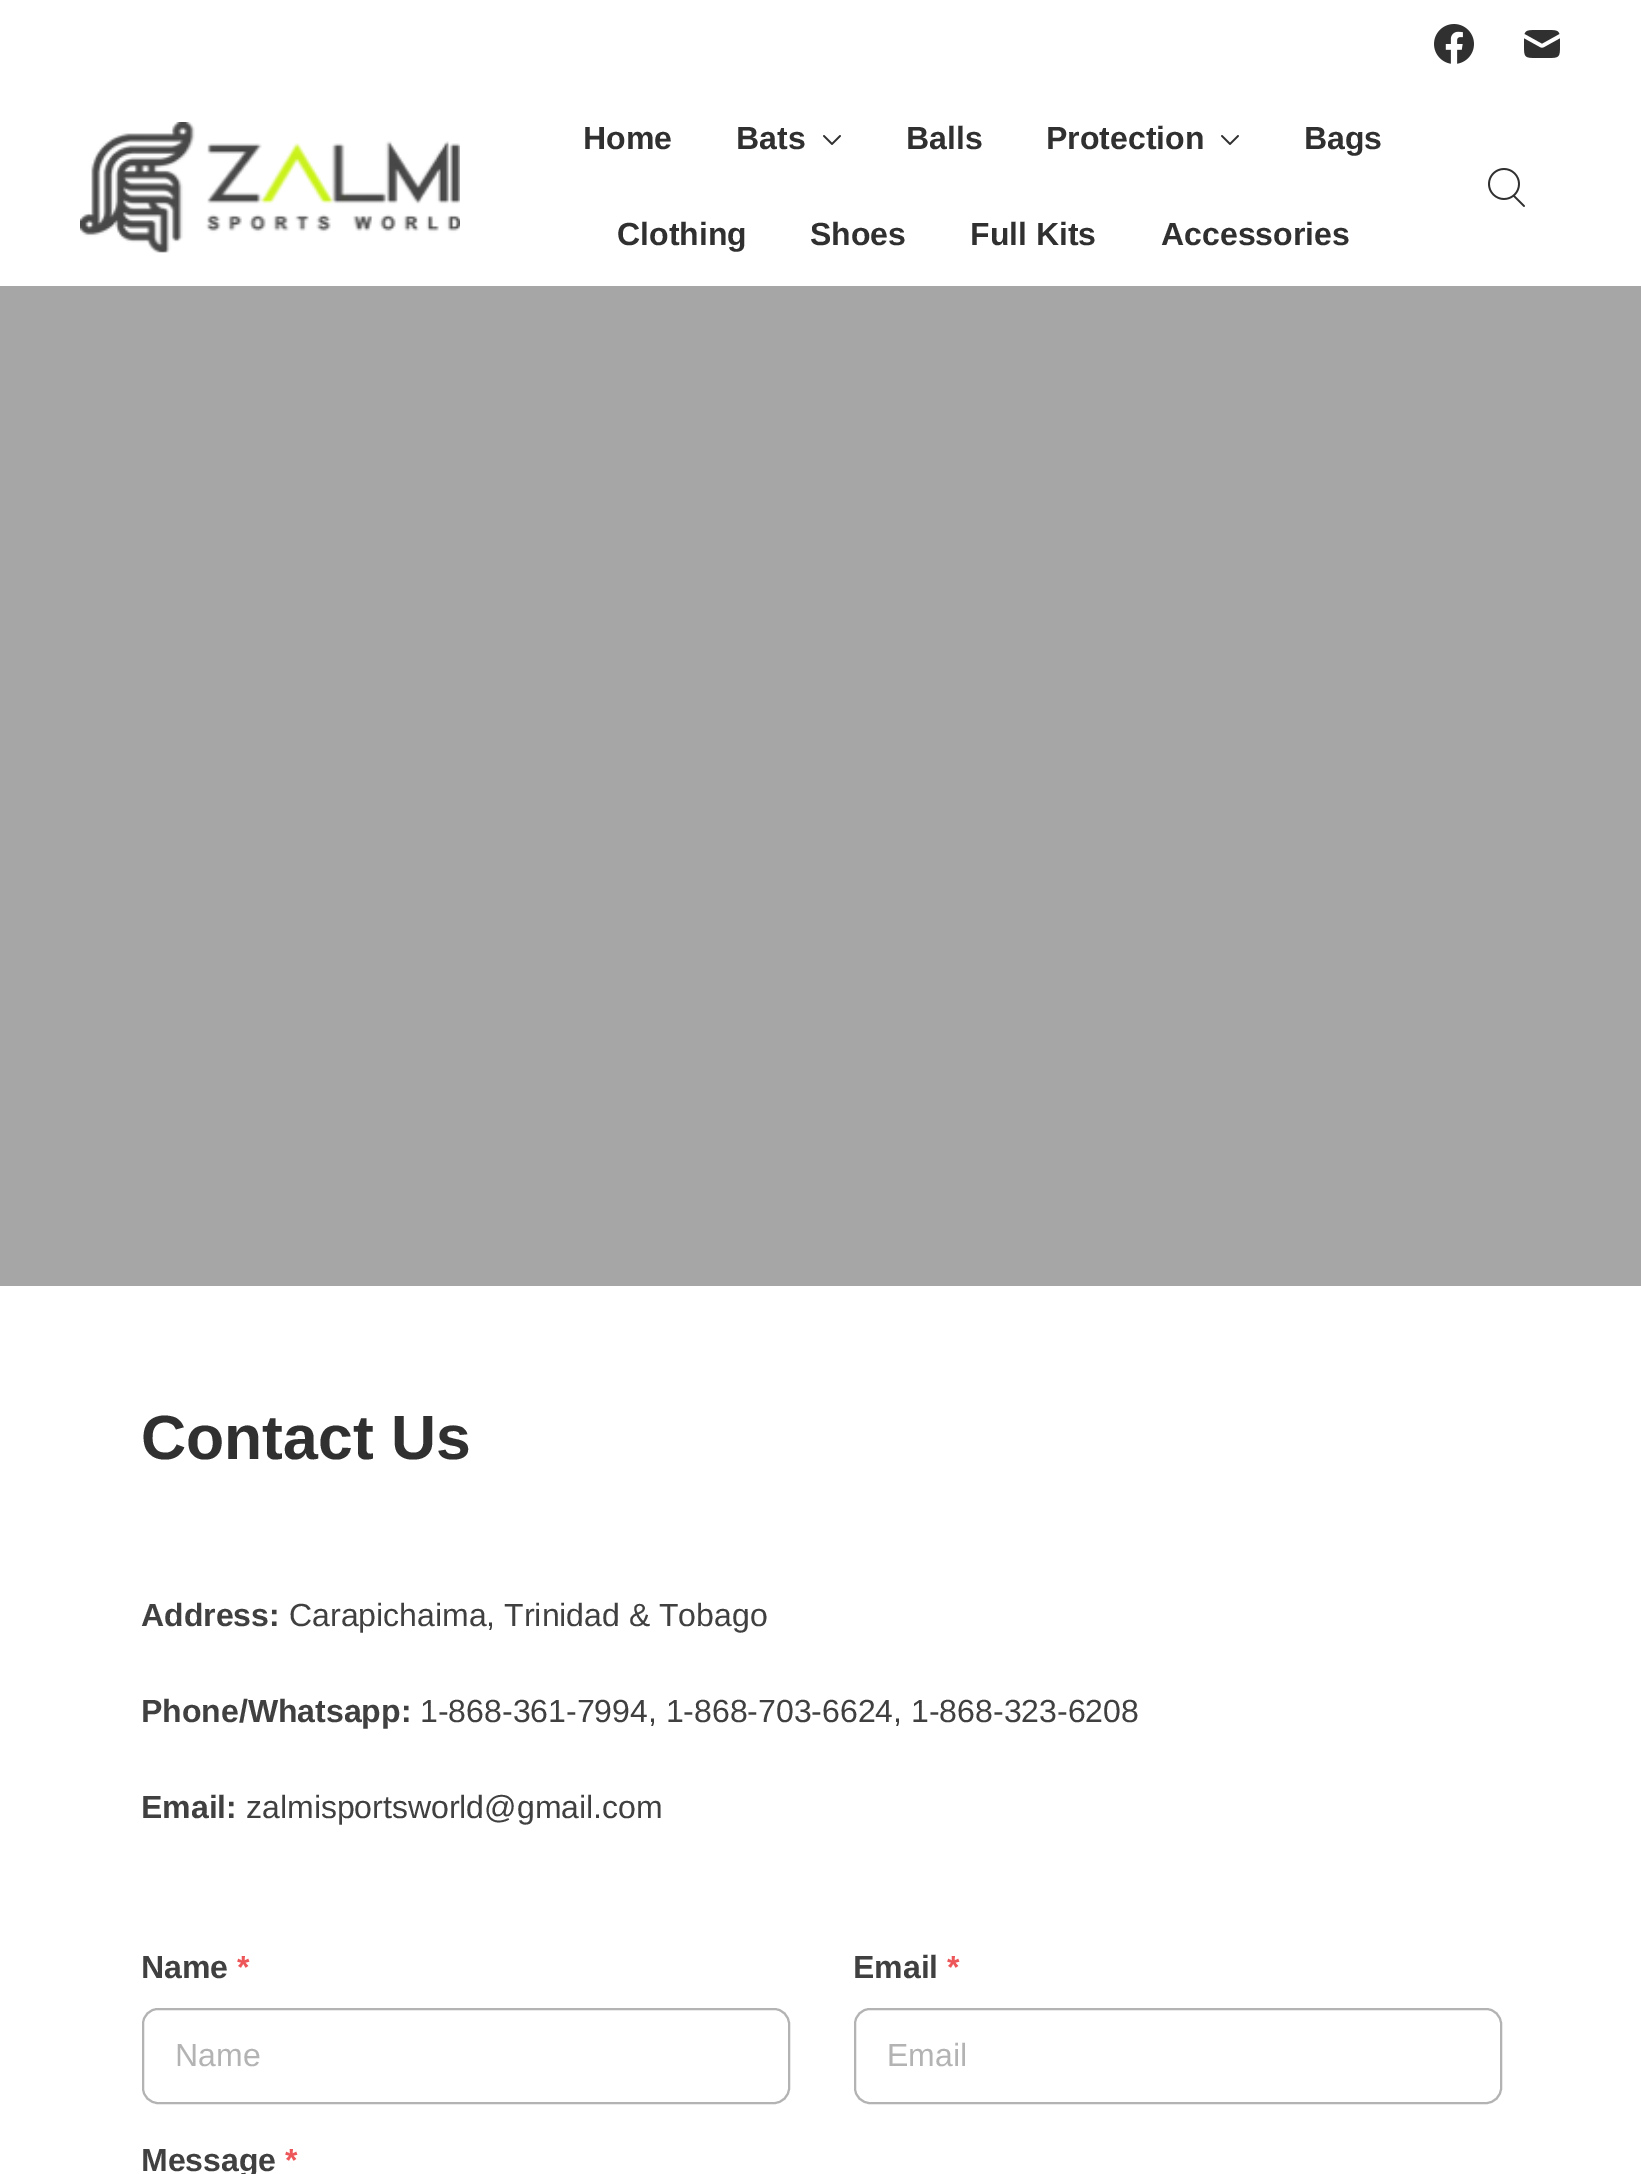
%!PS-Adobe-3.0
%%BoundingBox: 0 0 1641 2174
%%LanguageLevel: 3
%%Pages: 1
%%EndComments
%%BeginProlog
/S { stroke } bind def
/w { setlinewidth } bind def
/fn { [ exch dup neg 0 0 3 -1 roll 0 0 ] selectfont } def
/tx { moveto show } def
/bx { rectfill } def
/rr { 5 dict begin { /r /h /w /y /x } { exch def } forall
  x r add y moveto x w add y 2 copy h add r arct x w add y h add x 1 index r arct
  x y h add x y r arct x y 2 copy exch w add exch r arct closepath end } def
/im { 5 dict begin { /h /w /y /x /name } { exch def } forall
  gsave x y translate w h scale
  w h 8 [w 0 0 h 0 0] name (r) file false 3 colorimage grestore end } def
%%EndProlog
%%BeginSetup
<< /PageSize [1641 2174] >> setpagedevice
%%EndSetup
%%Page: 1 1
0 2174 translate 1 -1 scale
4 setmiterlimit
1 setgray
0 0 1641 2174 bx
(image0.raw) 1434 24 40 40 im
(image1.raw) 1524 30 36 28 im
(image2.raw) 80 122 380 131 im
/LiberationSans-Bold 32 fn
0.188 setgray
(Home) 583 149 tx
(Bats) 736 149 tx
(image3.raw) 823 135 18 10 im
(Balls) 906 149 tx
(Protection) 1046 149 tx
(image3.raw) 1221 135 18 10 im
(Bags) 1304 149 tx
(Clothing) 617 245 tx
(Shoes) 810 245 tx
(Full Kits) 970 245 tx
(Accessories) 1161 245 tx
(image4.raw) 1488 168 37 39 im
0.651 setgray
0 286 1641 1000 bx
/LiberationSans-Bold 62.5 fn
0.188 setgray
(Contact Us) 141 1459 tx
/LiberationSans-Bold 32 fn
0.251 setgray
(Address:) 141 1626 tx
/LiberationSans-Regular 32 fn
(Carapichaima, Trinidad & Tobago) 289 1626 tx
/LiberationSans-Bold 32 fn
(Phone/Whatsapp:) 141 1722 tx
/LiberationSans-Regular 32 fn
(1-868-361-7994, 1-868-703-6624, 1-868-323-6208) 420 1722 tx
/LiberationSans-Bold 32 fn
(Email:) 141 1818 tx
/LiberationSans-Regular 32 fn
(zalmisportsworld@gmail.com) 246 1818 tx
/LiberationSans-Bold 32 fn
(Name) 141 1978 tx
0.933 0.341 0.353 setrgbcolor
(*) 237 1978 tx
0.702 setgray
2 w
143 2009 646 94 15 rr S
/LiberationSans-Regular 32 fn
(Name) 175 2066 tx
/LiberationSans-Bold 32 fn
0.251 setgray
(Email) 853 1978 tx
0.933 0.341 0.353 setrgbcolor
(*) 947 1978 tx
0.702 setgray
855 2009 646 94 15 rr S
/LiberationSans-Regular 32 fn
(Email) 887 2066 tx
/LiberationSans-Bold 32 fn
0.251 setgray
(Message) 141 2171 tx
0.933 0.341 0.353 setrgbcolor
(*) 285 2171 tx
showpage
%%EOF
